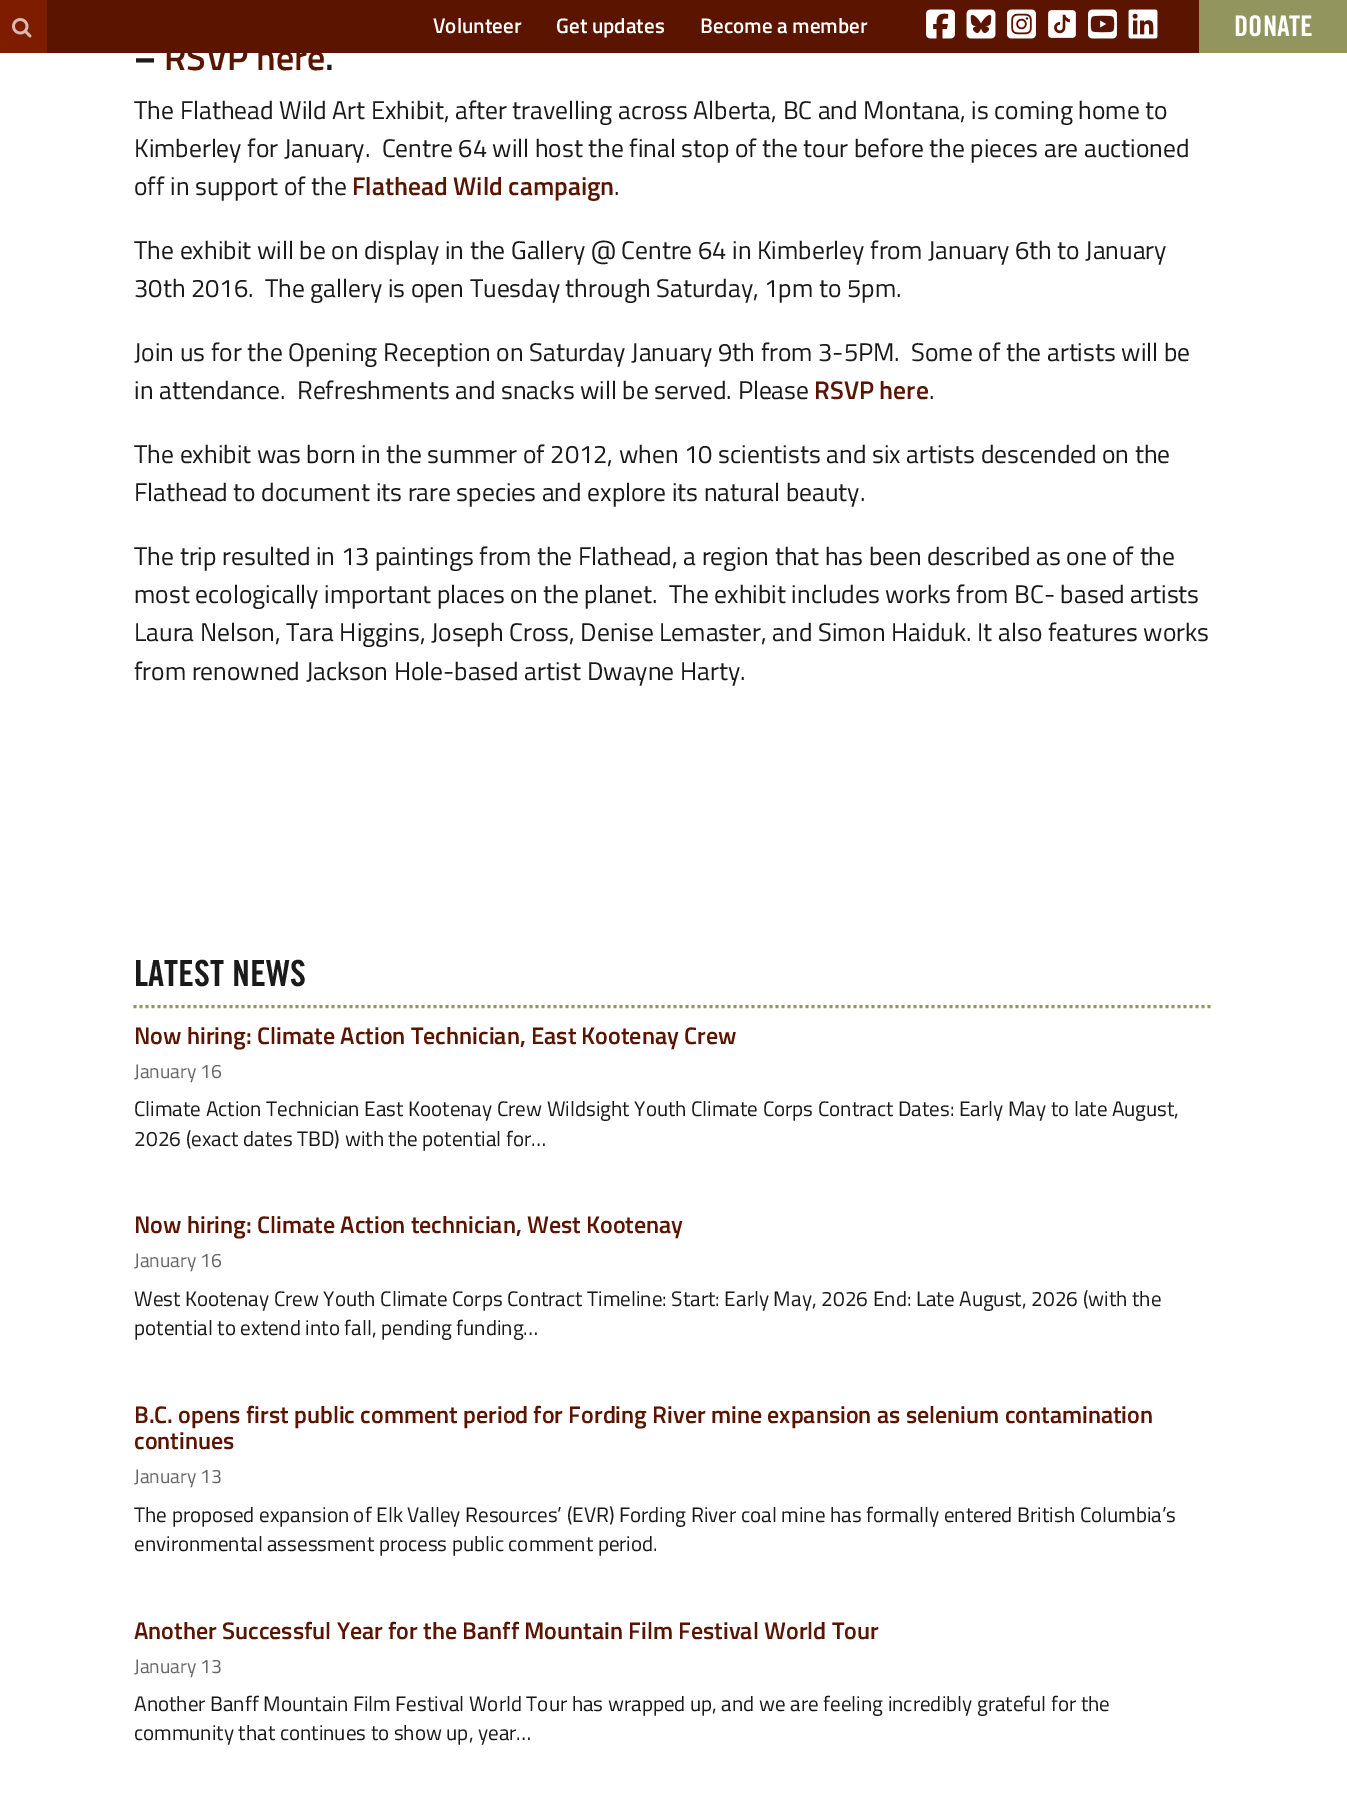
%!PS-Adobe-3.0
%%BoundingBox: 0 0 1347 1802
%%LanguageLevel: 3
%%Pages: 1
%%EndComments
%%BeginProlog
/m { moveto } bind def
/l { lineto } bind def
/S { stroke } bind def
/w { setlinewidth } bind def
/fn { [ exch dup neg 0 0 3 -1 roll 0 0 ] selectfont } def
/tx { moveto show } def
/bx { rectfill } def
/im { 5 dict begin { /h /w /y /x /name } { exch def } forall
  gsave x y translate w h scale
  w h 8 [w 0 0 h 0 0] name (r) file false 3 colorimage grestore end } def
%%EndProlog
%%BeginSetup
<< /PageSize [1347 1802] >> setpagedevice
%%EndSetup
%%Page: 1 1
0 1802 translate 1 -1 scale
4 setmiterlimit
1 setgray
0 0 1347 1802 bx
0.353 0.078 0 setrgbcolor
47 0 1152 53 bx
0.494 0.11 0 setrgbcolor
0 0 47 53 bx
(image0.raw) 12 18 20 20 im
/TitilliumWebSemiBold-SemiBold 21 fn
1 setgray
(Volunteer) 433 33 tx
(Get updates) 556 33 tx
(Become a member) 700 33 tx
(image1.raw) 926 9 29 30 im
(image2.raw) 966 9 30 30 im
(image3.raw) 1007 9 29 30 im
(image4.raw) 1048 10 28 28 im
(image5.raw) 1088 9 29 30 im
(image6.raw) 1128 9 30 30 im
0.573 0.584 0.369 setrgbcolor
1199 0 148 53 bx
/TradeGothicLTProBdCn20-Regular 28.5 fn
1 setgray
(DONATE) 1234 36 tx
/TitilliumWeb-Bold 36 fn
0.102 setgray
(–) 134 70 tx
/TitilliumWebSemiBold-SemiBold 36 fn
0.353 0.078 0 setrgbcolor
(RSVP here) 164 70 tx
0.102 setgray
(.) 325 70 tx
/TitilliumWeb-Regular 25.5 fn
(The Flathead Wild Art Exhibit, after travelling across Alberta, BC and Montana, is coming home to) 134 119 tx
(Kimberley for January.  Centre 64 will host the final stop of the tour before the pieces are auctioned) 134 157 tx
(off in support of the) 134 195 tx
/TitilliumWebSemiBold-SemiBold 25.5 fn
0.353 0.078 0 setrgbcolor
(Flathead Wild campaign) 352 195 tx
/TitilliumWeb-Regular 25.5 fn
0.102 setgray
(.) 614 195 tx
(The exhibit will be on display in the Gallery @ Centre 64 in Kimberley from January 6th to January) 134 259 tx
(30th 2016.  The gallery is open Tuesday through Saturday, 1pm to 5pm.) 134 297 tx
(Join us for the Opening Reception on Saturday January 9th from 3-5PM.  Some of the artists will be) 134 361 tx
(in attendance.  Refreshments and snacks will be served. Please) 134 399 tx
/TitilliumWebSemiBold-SemiBold 25.5 fn
0.353 0.078 0 setrgbcolor
(RSVP here) 814 399 tx
/TitilliumWeb-Regular 25.5 fn
0.102 setgray
(.) 929 399 tx
(The exhibit was born in the summer of 2012, when 10 scientists and six artists descended on the) 134 463 tx
(Flathead to document its rare species and explore its natural beauty.) 134 501 tx
(The trip resulted in 13 paintings from the Flathead, a region that has been described as one of the) 134 565 tx
(most ecologically important places on the planet.  The exhibit includes works from BC- based artists) 134 603 tx
(Laura Nelson, Tara Higgins, Joseph Cross, Denise Lemaster, and Simon Haiduk. It also features works) 134 641 tx
(from renowned Jackson Hole-based artist Dwayne Harty.) 134 680 tx
0.573 0.584 0.369 setrgbcolor
3 w
[3 3] 0 setdash
133.5 1006.5 m 1213.5 1006.5 l S
/TradeGothicLTProBdCn20-Regular 36 fn
0.102 setgray
(LATEST NEWS) 134 986 tx
/TitilliumWebSemiBold-SemiBold 24 fn
0.353 0.078 0 setrgbcolor
(Now hiring: Climate Action Technician, East Kootenay Crew) 134 1044 tx
/TitilliumWeb-Regular 19.5 fn
0.404 setgray
(January 16) 134 1078 tx
/TitilliumWeb-Regular 21 fn
0.102 setgray
(Climate Action Technician East Kootenay Crew Wildsight Youth Climate Corps Contract Dates: Early May to late August,) 134 1116 tx
(2026 \(exact dates TBD\) with the potential for…) 134 1146 tx
/TitilliumWebSemiBold-SemiBold 24 fn
0.353 0.078 0 setrgbcolor
(Now hiring: Climate Action technician, West Kootenay) 134 1233 tx
/TitilliumWeb-Regular 19.5 fn
0.404 setgray
(January 16) 134 1267 tx
/TitilliumWeb-Regular 21 fn
0.102 setgray
(West Kootenay Crew Youth Climate Corps Contract Timeline: Start: Early May, 2026 End: Late August, 2026 \(with the) 134 1306 tx
(potential to extend into fall, pending funding…) 134 1335 tx
/TitilliumWebSemiBold-SemiBold 24 fn
0.353 0.078 0 setrgbcolor
(B.C. opens first public comment period for Fording River mine expansion as selenium contamination) 134 1423 tx
(continues) 134 1449 tx
/TitilliumWeb-Regular 19.5 fn
0.404 setgray
(January 13) 134 1483 tx
/TitilliumWeb-Regular 21 fn
0.102 setgray
(The proposed expansion of Elk Valley Resources’ \(EVR\) Fording River coal mine has formally entered British Columbia’s) 134 1522 tx
(environmental assessment process public comment period.) 134 1551 tx
/TitilliumWebSemiBold-SemiBold 24 fn
0.353 0.078 0 setrgbcolor
(Another Successful Year for the Banff Mountain Film Festival World Tour) 134 1639 tx
/TitilliumWeb-Regular 19.5 fn
0.404 setgray
(January 13) 134 1673 tx
/TitilliumWeb-Regular 21 fn
0.102 setgray
(Another Banff Mountain Film Festival World Tour has wrapped up, and we are feeling incredibly grateful for the) 134 1711 tx
(community that continues to show up, year…) 134 1740 tx
showpage
%%EOF
